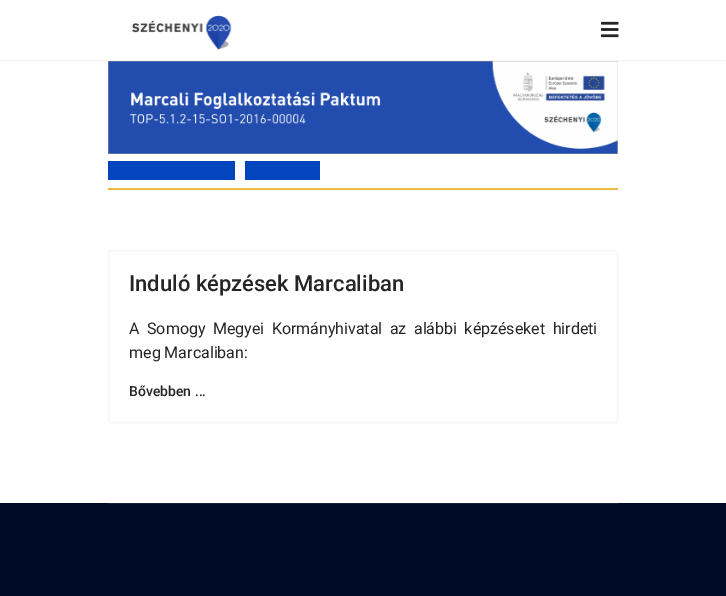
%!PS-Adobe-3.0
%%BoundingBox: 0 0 726 596
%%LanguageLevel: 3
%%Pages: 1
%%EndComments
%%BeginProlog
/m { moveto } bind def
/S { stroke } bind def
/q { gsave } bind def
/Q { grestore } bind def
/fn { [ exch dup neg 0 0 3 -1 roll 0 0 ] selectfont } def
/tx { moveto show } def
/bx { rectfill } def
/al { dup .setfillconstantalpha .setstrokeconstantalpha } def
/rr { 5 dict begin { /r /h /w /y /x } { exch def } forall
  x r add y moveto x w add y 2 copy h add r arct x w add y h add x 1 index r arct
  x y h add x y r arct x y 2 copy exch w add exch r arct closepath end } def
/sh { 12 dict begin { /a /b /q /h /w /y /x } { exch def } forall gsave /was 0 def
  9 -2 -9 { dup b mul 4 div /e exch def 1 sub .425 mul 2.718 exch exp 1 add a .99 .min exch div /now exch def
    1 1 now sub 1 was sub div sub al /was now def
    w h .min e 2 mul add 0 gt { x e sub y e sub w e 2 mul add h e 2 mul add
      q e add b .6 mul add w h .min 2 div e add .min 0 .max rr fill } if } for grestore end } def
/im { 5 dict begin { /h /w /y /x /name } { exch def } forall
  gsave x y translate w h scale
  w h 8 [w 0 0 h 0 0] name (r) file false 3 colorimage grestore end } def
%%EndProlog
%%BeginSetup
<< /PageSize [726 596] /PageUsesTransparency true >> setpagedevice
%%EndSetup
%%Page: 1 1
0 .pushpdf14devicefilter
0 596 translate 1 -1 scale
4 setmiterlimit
1 setgray
0 0 726 596 bx
(image2.raw) 108 61 510 93 im
q
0 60 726 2 rectclip
0 setgray
0 0 726 60 0 2 0.1 sh
Q
(image0.raw) 131 15 101 35 im
(image1.raw) 601 21 18 17 im
0.012 0.271 0.749 setrgbcolor
108 161 127 19 bx
245 161 75 19 bx
0.929 0.722 0.239 setrgbcolor
108 188 510 2 bx
0.961 setgray
108.5 250.5 509 172 2.5 rr S
/Roboto-Medium 22 fn
0.145 setgray
(Induló képzések Marcaliban) 129 291 tx
/Roboto-Regular 16 fn
129 334 m 3.5 0 32 (A Somogy Megyei Kormányhivatal az alábbi képzéseket hirdeti) widthshow
(meg Marcaliban:) 129 358 tx
/Roboto-Medium 14 fn
(Bővebben ...) 129 396 tx
0 0.043 0.161 setrgbcolor
0 503 726 93 bx
0.102 0.137 0.243 setrgbcolor
108 503 510 1 bx
.poppdf14devicefilter showpage
%%EOF
